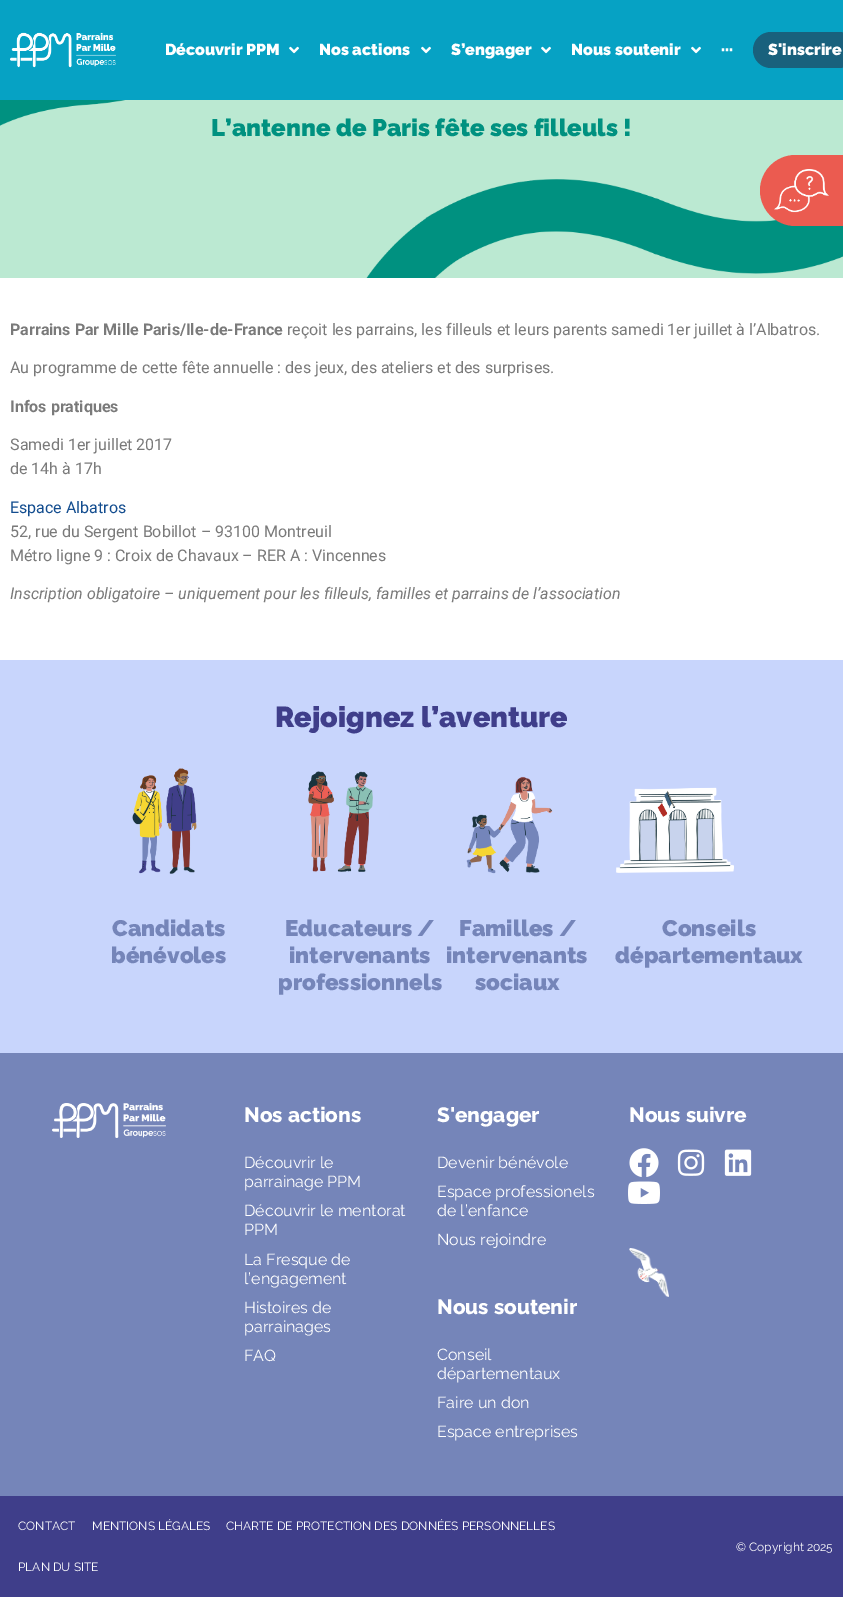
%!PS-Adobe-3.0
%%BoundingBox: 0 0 843 1597
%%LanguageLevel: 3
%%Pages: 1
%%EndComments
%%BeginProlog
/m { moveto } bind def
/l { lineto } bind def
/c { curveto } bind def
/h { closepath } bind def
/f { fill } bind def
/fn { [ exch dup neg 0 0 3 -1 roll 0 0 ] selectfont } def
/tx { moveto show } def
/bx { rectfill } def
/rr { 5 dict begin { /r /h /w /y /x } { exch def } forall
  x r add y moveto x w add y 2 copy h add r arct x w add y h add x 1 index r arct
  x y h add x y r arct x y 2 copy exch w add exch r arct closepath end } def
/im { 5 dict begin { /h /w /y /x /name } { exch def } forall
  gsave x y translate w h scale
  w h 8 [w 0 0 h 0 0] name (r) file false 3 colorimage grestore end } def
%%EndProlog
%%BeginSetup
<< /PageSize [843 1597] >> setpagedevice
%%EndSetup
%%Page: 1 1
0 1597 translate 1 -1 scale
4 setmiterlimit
1 setgray
0 0 843 1597 bx
0.024 0.635 0.769 setrgbcolor
0 0 843 100 bx
(image0.raw) 10 32 106 36 im
/Raleway-Black 16 fn
1 setgray
(Découvrir PPM) 165 55 tx
(image1.raw) 289 46 10 8 im
(Nos actions) 319 55 tx
(image1.raw) 421 46 10 8 im
(S’engager) 451 55 tx
(image1.raw) 541 46 10 8 im
(Nous soutenir) 571 55 tx
(image1.raw) 691 46 10 8 im
(···) 721 55 tx
(image3.raw) 0 100 843 178 im
0.922 0.357 0.314 setrgbcolor
795.5 155 m 843 155 l 843 226 l 795.5 226 l 776 226 760 210 760 190.5 c 760 171 776 155 795.5 155 c h f
(image2.raw) 774 169 55 44 im
0.098 0.38 0.49 setrgbcolor
753 32 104 36 18 rr f
1 setgray
(S'inscrire) 768 55 tx
/Raleway-Black 24 fn
0 0.569 0.502 setrgbcolor
(L’antenne de Paris fête ses filleuls !) 211 136 tx
/Roboto-Bold 16 fn
0.478 setgray
(Parrains Par Mille Paris/Ile-de-France) 10 335 tx
/Roboto-Regular 16 fn
(reçoit les parrains, les filleuls et leurs parents samedi 1er juillet à l’Albatros.) 287 335 tx
(Au programme de cette fête annuelle : des jeux, des ateliers et des surprises.) 10 373 tx
/Roboto-Bold 16 fn
(Infos pratiques) 10 412 tx
/Roboto-Regular 16 fn
(Samedi 1er juillet 2017) 10 450 tx
(de 14h à 17h) 10 474 tx
0.075 0.302 0.561 setrgbcolor
(Espace Albatros) 10 513 tx
0.478 setgray
(52, rue du Sergent Bobillot – 93100 Montreuil) 10 537 tx
(Métro ligne 9 : Croix de Chavaux – RER A : Vincennes) 10 561 tx
/Roboto-Italic 16 fn
(Inscription obligatoire – uniquement pour les filleuls, familles et parrains de l’association) 10 599 tx
0.784 0.835 0.988 setrgbcolor
0 660 843 393 bx
/Raleway-Black 28.75 fn
0.247 0.243 0.541 setrgbcolor
(Rejoignez l’aventure) 275 727 tx
(image4.raw) 132 768 65 106 im
/Raleway-Black 22.5 fn
0.459 0.522 0.725 setrgbcolor
(Candidats) 112 936 tx
(bénévoles) 111 963 tx
(image5.raw) 308 771 65 101 im
(Educateurs /) 285 936 tx
(intervenants) 289 963 tx
(professionnels) 278 990 tx
(image6.raw) 466 776 87 98 im
(Familles /) 459 936 tx
(intervenants) 446 963 tx
(sociaux) 475 990 tx
(image7.raw) 616 787 118 86 im
(Conseils) 662 936 tx
(départementaux) 615 963 tx
0 1053 843 443 bx
(image8.raw) 52 1103 114 35 im
/Raleway-ExtraBold 20.75 fn
1 setgray
(Nos actions) 244 1122 tx
/Raleway-Regular 16 fn
(Découvrir le) 244 1168 tx
(parrainage PPM) 244 1187 tx
(Découvrir le mentorat) 244 1216 tx
(PPM) 244 1235 tx
(La Fresque de) 244 1265 tx
(l’engagement) 244 1284 tx
(Histoires de) 244 1313 tx
(parrainages) 244 1332 tx
(FAQ) 244 1361 tx
/Raleway-ExtraBold 20.75 fn
(S'engager) 437 1122 tx
/Raleway-Regular 16 fn
(Devenir bénévole) 437 1168 tx
(Espace professionels) 437 1197 tx
(de l’enfance) 437 1216 tx
(Nous rejoindre) 437 1245 tx
/Raleway-ExtraBold 20.75 fn
(Nous soutenir) 437 1314 tx
/Raleway-Regular 16 fn
(Conseil) 437 1360 tx
(départementaux) 437 1379 tx
(Faire un don) 437 1408 tx
(Espace entreprises) 437 1437 tx
/Raleway-ExtraBold 20.75 fn
(Nous suivre) 629 1122 tx
(image9.raw) 629 1148 30 29 im
(image10.raw) 677 1149 28 27 im
(image11.raw) 724 1149 28 27 im
(image12.raw) 628 1181 32 23 im
(image13.raw) 629 1248 40 49 im
0.247 0.243 0.541 setrgbcolor
0 1496 843 101 bx
/Raleway-Regular 12 fn
1 setgray
(CONTACT) 18 1530 tx
(MENTIONS LÉGALES) 92 1530 tx
(CHARTE DE PROTECTION DES DONNÉES PERSONNELLES) 226 1530 tx
(PLAN DU SITE) 18 1571 tx
(© Copyright 2025) 736 1551 tx
showpage
%%EOF
